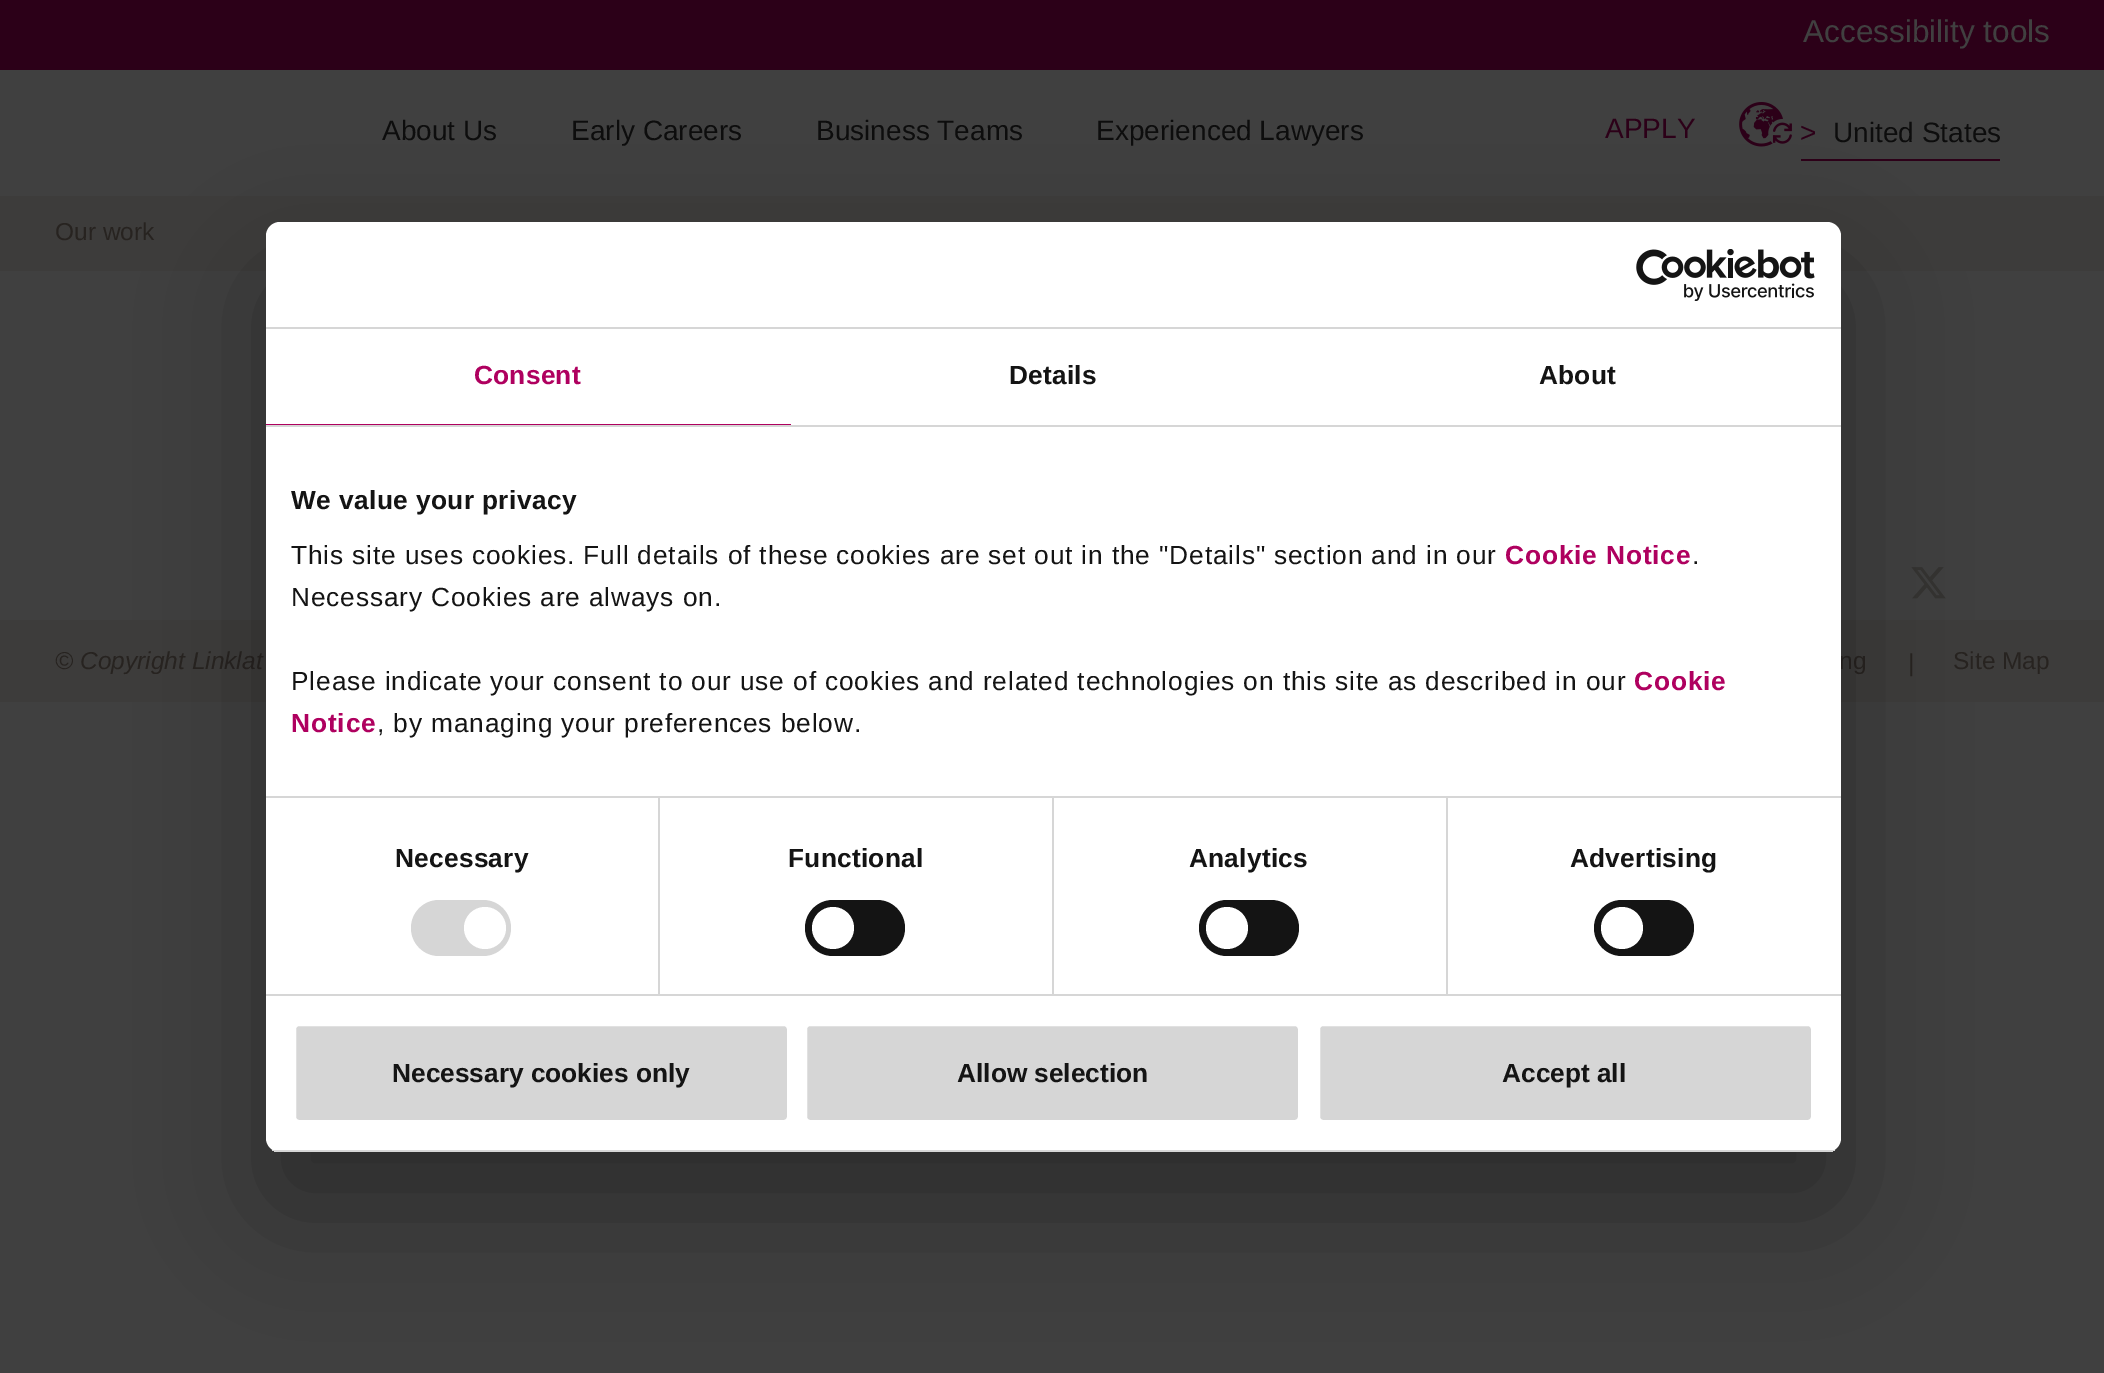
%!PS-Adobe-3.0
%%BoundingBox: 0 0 2104 1373
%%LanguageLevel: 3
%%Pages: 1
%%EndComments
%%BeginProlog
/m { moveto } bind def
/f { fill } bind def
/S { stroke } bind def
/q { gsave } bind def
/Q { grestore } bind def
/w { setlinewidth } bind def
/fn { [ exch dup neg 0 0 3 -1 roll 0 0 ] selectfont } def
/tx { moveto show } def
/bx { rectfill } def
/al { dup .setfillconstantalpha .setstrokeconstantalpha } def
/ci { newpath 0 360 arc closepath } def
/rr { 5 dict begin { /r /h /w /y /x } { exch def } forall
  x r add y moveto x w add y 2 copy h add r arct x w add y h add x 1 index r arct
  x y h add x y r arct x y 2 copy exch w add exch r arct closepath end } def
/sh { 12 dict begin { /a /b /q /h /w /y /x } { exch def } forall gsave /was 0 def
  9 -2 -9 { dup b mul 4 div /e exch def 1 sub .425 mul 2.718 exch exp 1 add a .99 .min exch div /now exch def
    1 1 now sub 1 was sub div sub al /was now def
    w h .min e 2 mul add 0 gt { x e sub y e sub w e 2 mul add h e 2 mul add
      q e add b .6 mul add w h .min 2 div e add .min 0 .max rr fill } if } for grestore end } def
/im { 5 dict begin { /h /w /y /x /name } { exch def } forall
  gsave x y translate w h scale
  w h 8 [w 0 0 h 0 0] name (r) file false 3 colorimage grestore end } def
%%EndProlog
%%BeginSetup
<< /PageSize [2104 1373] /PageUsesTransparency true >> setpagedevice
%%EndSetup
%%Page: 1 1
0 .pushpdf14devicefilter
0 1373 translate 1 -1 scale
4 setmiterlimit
0.251 setgray
0 0 2104 1373 bx
0.173 0 0.094 setrgbcolor
0 0 2104 70 bx
/LiberationSans-Regular 31.5 fn
0.251 setgray
(Accessibility tools) 1803 42 tx
/LiberationSans-Regular 28 fn
0.051 setgray
(About Us) 382 140 tx
(Early Careers) 571 140 tx
(Business Teams) 816 140 tx
(Experienced Lawyers) 1096 140 tx
0.173 0 0.094 setrgbcolor
(APPLY) 1605 138 tx
(image0.raw) 1739 102 53 45 im
1801 159 199 2 bx
(>) 1800 142 tx
0.051 setgray
(United States) 1833 142 tx
0.239 0.235 0.231 setrgbcolor
0 196 2104 75 bx
/LiberationSans-Regular 24.5 fn
0.153 0.137 0.125 setrgbcolor
(Our work) 55 240 tx
(image1.raw) 1911 567 35 32 im
0.239 0.235 0.231 setrgbcolor
0 620 2104 82 bx
/LiberationSans-Italic 24.5 fn
0.153 0.137 0.125 setrgbcolor
(© Copyright Linklat) 55 669 tx
/LiberationSans-Regular 24.5 fn
(ng) 1839 669 tx
(|) 1908 671 tx
(Site Map) 1953 669 tx
0 setgray
266 278 1575 930 14 59.5 0.3 sh
1 setgray
266 222 1575 930 14 rr f
0.839 setgray
266 327 1575 2 bx
(image2.raw) 1636 249 179 52 im
266 425 1575 2 bx
0.686 0 0.373 setrgbcolor
266 424 525 1 bx
/LiberationSans-Bold 26.25 fn
474 384 m 0.25 0 (Consent) ashow
0.078 setgray
1009 384 m 0.25 0 (Details) ashow
1539 384 m 0.25 0 (About) ashow
0.839 setgray
266 796 1575 2 bx
0.078 setgray
291 509 m 0.4 0 (We value your privacy) ashow
/LiberationSans-Regular 26.25 fn
291 564 m 0.88 0 (This site uses cookies. Full details of these cookies are set out in the "Details" section and in our) ashow
/LiberationSans-Bold 26.25 fn
0.686 0 0.373 setrgbcolor
1505 564 m 0.88 0 (Cookie Notice) ashow
/LiberationSans-Regular 26.25 fn
0.078 setgray
1692 564 m 0.88 0 (.) ashow
291 606 m 0.88 0 (Necessary Cookies are always on.) ashow
291 690 m 0.88 0 (Please indicate your consent to our use of cookies and related technologies on this site as described in our) ashow
/LiberationSans-Bold 26.25 fn
0.686 0 0.373 setrgbcolor
1634 690 m 0.88 0 (Cookie) ashow
291 732 m 0.88 0 (Notice) ashow
/LiberationSans-Regular 26.25 fn
0.078 setgray
377 732 m 0.88 0 (, by managing your preferences below.) ashow
0.839 setgray
266 994 1575 2 bx
658 798 2 196 bx
/LiberationSans-Bold 26.25 fn
0.078 setgray
395 867 m 0.25 0 (Necessary) ashow
0.839 setgray
411 900 100 56 28 rr f
1 setgray
485 928 21 ci f
0.839 setgray
1052 798 2 196 bx
0.078 setgray
788 867 m 0.25 0 (Functional) ashow
805 900 100 56 28 rr f
1 setgray
833 928 21 ci f
0.839 setgray
1446 798 2 196 bx
0.078 setgray
1189 867 m 0.25 0 (Analytics) ashow
1199 900 100 56 28 rr f
1 setgray
1227 928 21 ci f
0.078 setgray
1570 867 m 0.25 0 (Advertising) ashow
1594 900 100 56 28 rr f
1 setgray
1622 928 21 ci f
q
266 222 1575 930 14 rr clip newpath
0.839 setgray
266 1150 1575 2 bx
Q
0.839 setgray
294 1024 495 98 5 rr q f Q
1 setgray
4 w
S
0.078 setgray
(Necessary cookies only) 392 1082 tx
0.839 setgray
805 1024 495 98 5 rr q f Q
1 setgray
S
0.078 setgray
(Allow selection) 957 1082 tx
0.839 setgray
1318 1024 495 98 5 rr q f Q
1 setgray
S
0.078 setgray
(Accept all) 1502 1082 tx
.poppdf14devicefilter showpage
%%EOF
